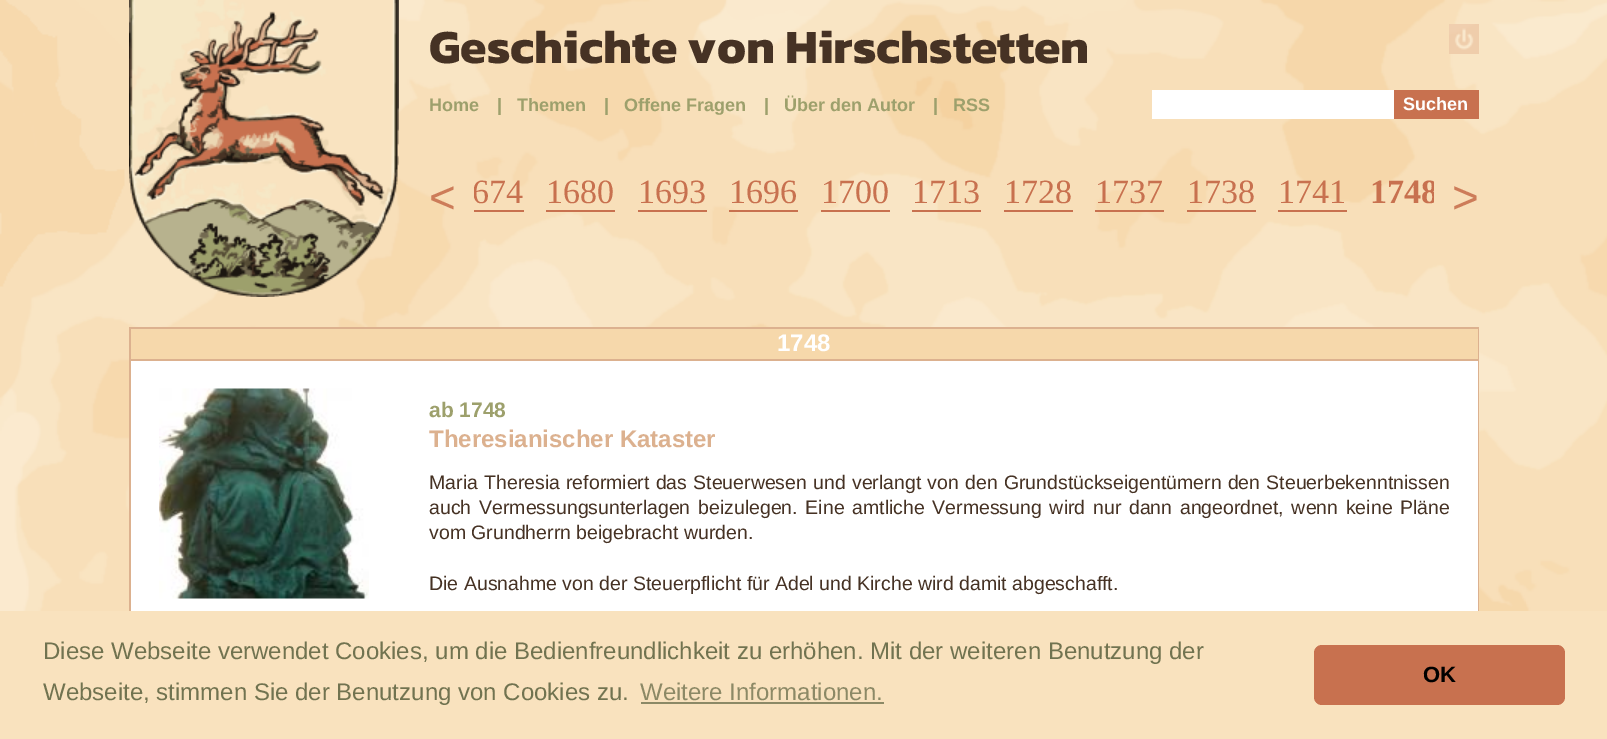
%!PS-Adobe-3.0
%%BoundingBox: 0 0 1607 739
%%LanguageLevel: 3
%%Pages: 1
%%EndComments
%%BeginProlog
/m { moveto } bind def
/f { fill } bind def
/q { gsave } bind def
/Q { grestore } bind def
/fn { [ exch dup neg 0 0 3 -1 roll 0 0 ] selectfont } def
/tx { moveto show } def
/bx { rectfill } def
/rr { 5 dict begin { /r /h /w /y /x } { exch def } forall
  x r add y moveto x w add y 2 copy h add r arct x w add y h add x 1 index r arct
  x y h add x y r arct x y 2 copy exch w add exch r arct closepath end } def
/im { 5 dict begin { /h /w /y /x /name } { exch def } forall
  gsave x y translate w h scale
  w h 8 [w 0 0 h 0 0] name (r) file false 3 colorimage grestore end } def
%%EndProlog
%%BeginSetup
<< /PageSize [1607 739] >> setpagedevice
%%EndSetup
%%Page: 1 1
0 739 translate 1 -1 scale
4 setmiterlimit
1 setgray
0 0 1607 739 bx
(image0.raw) 0 0 1607 611 im
(image1.raw) 129 0 270 297 im
(image2.raw) 1449 24 30 30 im
/Kanit-Bold 48 fn
0.275 0.196 0.141 setrgbcolor
(Geschichte von Hirschstetten) 429 63 tx
/LiberationSans-Bold 18 fn
0.616 0.627 0.424 setrgbcolor
(Home) 429 111 tx
(|) 497 111 tx
(Themen) 517 111 tx
(|) 604 111 tx
(Offene Fragen) 624 111 tx
(|) 764 111 tx
(Über den Autor) 784 111 tx
(|) 933 111 tx
(RSS) 953 111 tx
1 setgray
1152 90 242 29 bx
0.784 0.443 0.31 setrgbcolor
1394 90 85 29 bx
1 setgray
(Suchen) 1403 110 tx
/LiberationSans-Regular 46 fn
0.804 0.486 0.349 setrgbcolor
(<) 429 213 tx
q
474 174 960 90 rectclip
/LiberationSerif-Regular 34 fn
0.784 0.443 0.31 setrgbcolor
(674) 472 203 tx
Q
0.784 0.443 0.31 setrgbcolor
474 210 50 2 bx
/LiberationSerif-Regular 34 fn
(1680) 546 203 tx
546 210 69 2 bx
(1693) 638 203 tx
638 210 69 2 bx
(1696) 729 203 tx
729 210 69 2 bx
(1700) 821 203 tx
821 210 69 2 bx
(1713) 912 203 tx
912 210 69 2 bx
(1728) 1004 203 tx
1004 210 69 2 bx
(1737) 1095 203 tx
1095 210 69 2 bx
(1738) 1187 203 tx
1187 210 69 2 bx
(1741) 1278 203 tx
1278 210 69 2 bx
q
474 174 960 90 rectclip
/LiberationSerif-Bold 34 fn
(1748) 1370 203 tx
Q
/LiberationSans-Regular 46 fn
0.804 0.486 0.349 setrgbcolor
(>) 1452 213 tx
0.965 0.847 0.671 setrgbcolor
131 329 1347 30 bx
0.863 0.694 0.561 setrgbcolor
129 327 1350 2 bx
1478 327 1 32 bx
129 327 2 32 bx
/LiberationSans-Bold 24 fn
1 setgray
(1748) 777 351 tx
131 361 1347 250 bx
0.863 0.694 0.561 setrgbcolor
129 359 1350 2 bx
1478 359 1 252 bx
129 359 2 252 bx
(image3.raw) 159 388 210 211 im
/LiberationSans-Bold 21 fn
0.616 0.627 0.424 setrgbcolor
(ab 1748) 429 417 tx
/LiberationSans-Bold 24 fn
0.863 0.694 0.561 setrgbcolor
(Theresianischer Kataster) 429 447 tx
/LiberationSans-Regular 19.5 fn
0.275 0.196 0.141 setrgbcolor
429 489 m 0.75 0 32 (Maria Theresia reformiert das Steuerwesen und verlangt von den Grundstückseigentümern den Steuerbekenntnissen) widthshow
429 514 m 2.25 0 32 (auch Vermessungsunterlagen beizulegen. Eine amtliche Vermessung wird nur dann angeordnet, wenn keine Pläne) widthshow
(vom Grundherrn beigebracht wurden.) 429 539 tx
(Die Ausnahme von der Steuerpflicht für Adel und Kirche wird damit abgeschafft.) 429 590 tx
0.976 0.886 0.745 setrgbcolor
0 611 1607 128 bx
/LiberationSans-Regular 24 fn
0.443 0.451 0.314 setrgbcolor
(Diese Webseite verwendet Cookies, um die Bedienfreundlichkeit zu erhöhen. Mit der weiteren Benutzung der) 43 659 tx
(Webseite, stimmen Sie der Benutzung von Cookies zu.) 43 700 tx
0.549 0.537 0.4 setrgbcolor
(Weitere Informationen.) 640 700 tx
641 702 243 2 bx
0.784 0.443 0.31 setrgbcolor
1314 645 251 60 8 rr f
/LiberationSans-Bold 22 fn
0 setgray
(OK) 1423 682 tx
showpage
%%EOF
